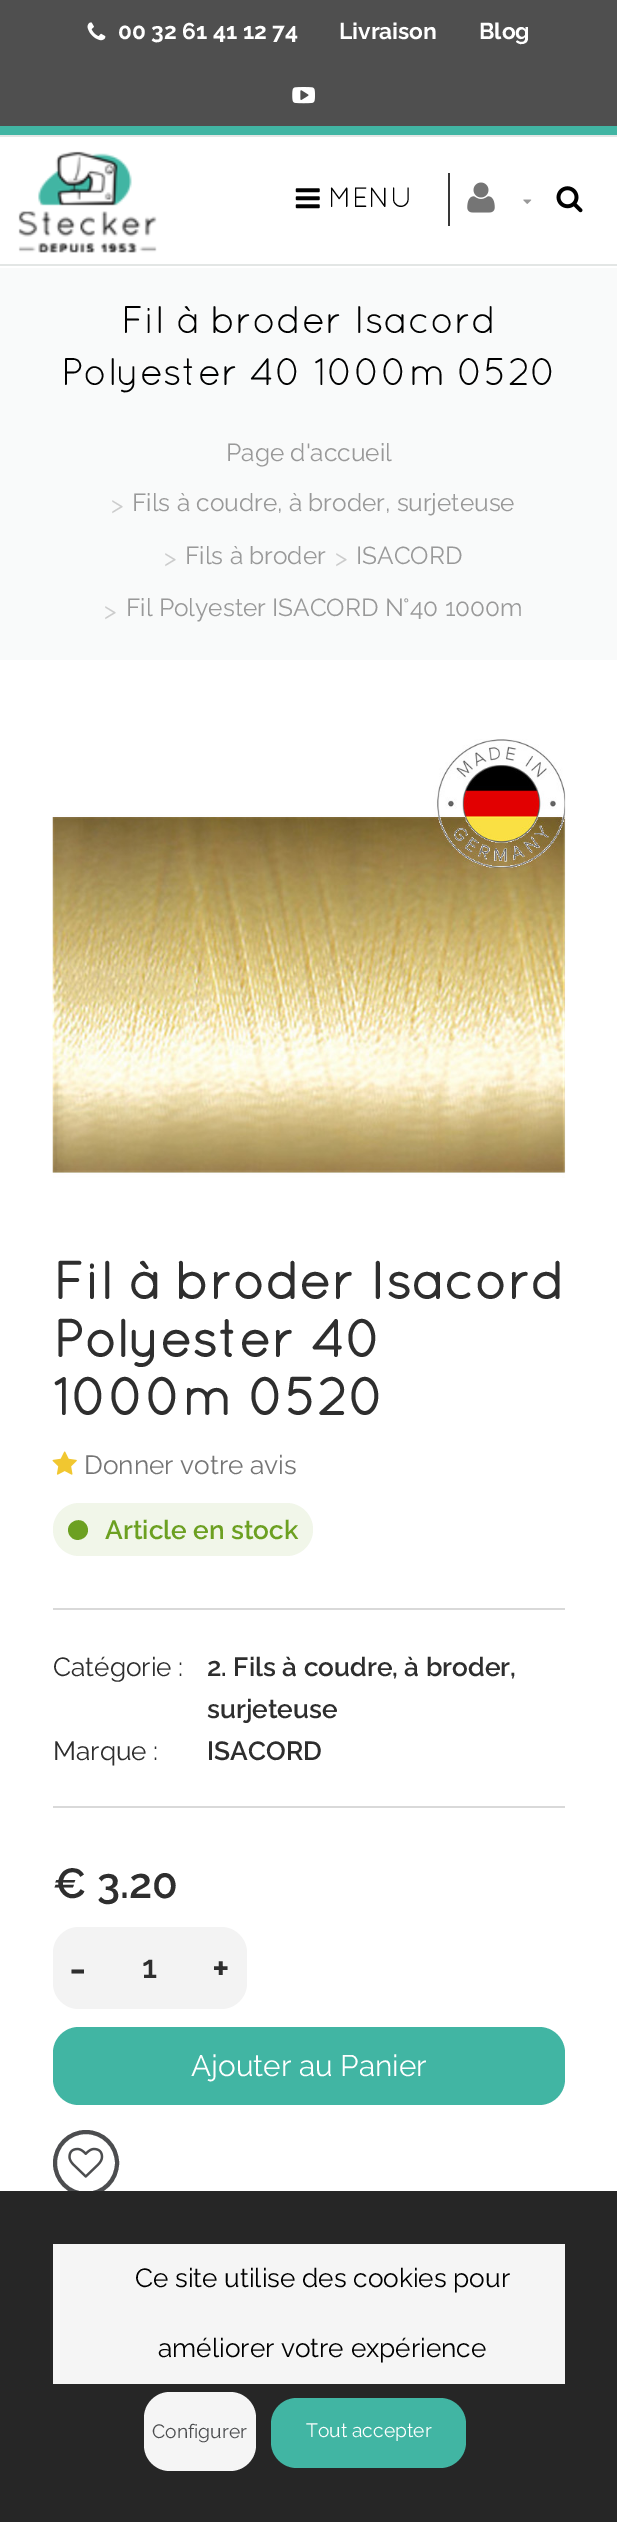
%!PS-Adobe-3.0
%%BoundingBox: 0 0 617 2522
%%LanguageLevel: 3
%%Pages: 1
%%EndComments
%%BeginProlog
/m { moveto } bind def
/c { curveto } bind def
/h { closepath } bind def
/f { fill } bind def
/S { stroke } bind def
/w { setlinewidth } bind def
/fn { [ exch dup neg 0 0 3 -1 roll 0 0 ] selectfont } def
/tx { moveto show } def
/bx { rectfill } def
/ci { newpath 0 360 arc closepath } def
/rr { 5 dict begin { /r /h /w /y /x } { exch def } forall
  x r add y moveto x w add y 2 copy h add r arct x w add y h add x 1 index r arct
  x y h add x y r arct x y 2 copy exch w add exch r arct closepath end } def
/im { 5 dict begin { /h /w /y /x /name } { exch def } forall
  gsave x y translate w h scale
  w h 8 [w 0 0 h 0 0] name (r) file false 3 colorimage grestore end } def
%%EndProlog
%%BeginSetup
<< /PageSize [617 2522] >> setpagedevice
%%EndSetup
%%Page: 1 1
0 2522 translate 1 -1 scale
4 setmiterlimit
1 setgray
0 0 617 2522 bx
0.31 setgray
0 0 617 126 bx
0.255 0.71 0.639 setrgbcolor
0 126 617 9 bx
(image0.raw) 87 22 19 19 im
/Raleway-Bold 22.75 fn
1 setgray
(00 32 61 41 12 74) 118 39 tx
(Livraison) 339 39 tx
(Blog) 479 39 tx
(image1.raw) 292 87 23 17 im
0.89 0.902 0.898 setrgbcolor
0 135 617 2 bx
0 264 617 2 bx
(image2.raw) 18 151 139 102 im
(image3.raw) 295 188 25 21 im
/Quicksand-Regular 28 fn
0 setgray
(MENU) 328 207 tx
0.22 setgray
448 173 2 53 bx
(image4.raw) 467 182 28 31 im
(image5.raw) 523 199 9 5 im
(image6.raw) 556 186 27 27 im
0.976 0.98 0.98 setrgbcolor
0 268 617 392 bx
/Quicksand-Regular 38.5 fn
0 setgray
(Fil à broder Isacord) 121 333 tx
(Polyester 40 1000m 0520) 61 385 tx
/Raleway-Regular 24.5 fn
0.6 setgray
(Page d'accueil) 226 461 tx
0.8 setgray
(>) 111 513 tx
0.6 setgray
(Fils à coudre, à broder, surjeteuse) 132 511 tx
0.8 setgray
(>) 164 566 tx
0.6 setgray
(Fils à broder) 185 564 tx
0.8 setgray
(>) 335 566 tx
0.6 setgray
(ISACORD) 356 564 tx
0.8 setgray
(>) 104 619 tx
0.6 setgray
(Fil Polyester ISACORD N°40 1000m) 126 616 tx
(image7.raw) 52 739 514 439 im
/Quicksand-Bold 52.5 fn
0.18 setgray
(Fil à broder Isacord) 53 1299 tx
(Polyester 40) 53 1357 tx
(1000m 0520) 53 1415 tx
(image8.raw) 52 1451 25 24 im
/Raleway-Regular 26.25 fn
0.459 setgray
(Donner votre avis) 84 1474 tx
0.945 0.965 0.914 setrgbcolor
53 1503 260 53 26.5 rr f
0.424 0.627 0.129 setrgbcolor
86.5 1525 m 93 1536.5 76 1546 69.5 1535 c 63 1524 80 1514 86.5 1525 c h f
/Raleway-SemiBold 26.25 fn
(Article en stock) 105 1539 tx
0.851 setgray
53 1608 512 2 bx
/Raleway-Regular 26.25 fn
0.18 setgray
(Catégorie :) 53 1676 tx
/Raleway-SemiBold 26.25 fn
(2. Fils à coudre, à broder,) 207 1676 tx
(surjeteuse) 207 1718 tx
/Raleway-Regular 26.25 fn
(Marque :) 53 1760 tx
/Raleway-SemiBold 26.25 fn
(ISACORD) 207 1760 tx
0.851 setgray
53 1806 512 2 bx
/Raleway-SemiBold 42 fn
0.18 setgray
(€ 3.20) 53 1898 tx
0.953 setgray
53 1927 194 82 26 rr f
0.18 setgray
(-) 69 1983 tx
/Raleway-SemiBold 32 fn
(1) 142 1978 tx
/Raleway-SemiBold 42 fn
(+) 212 1983 tx
0.255 0.71 0.639 setrgbcolor
53 2027 512 78 26 rr f
/Raleway-Regular 29.75 fn
1 setgray
(Ajouter au Panier) 191 2076 tx
0.298 0.302 0.31 setrgbcolor
4 w
86 2163 31 ci S
(image9.raw) 68 2147 36 31 im
0.149 setgray
0 2191 617 331 bx
0.961 setgray
53 2244 512 140 bx
/Raleway-Regular 26.25 fn
0 setgray
(Ce site utilise des cookies pour) 135 2287 tx
(améliorer votre expérience) 158 2357 tx
0.961 setgray
144 2392 112 79 26 rr f
/Raleway-Regular 19.25 fn
0.298 0.302 0.31 setrgbcolor
(Configurer) 152 2438 tx
0.255 0.71 0.639 setrgbcolor
271 2398 195 70 26 rr f
1 setgray
(Tout accepter) 306 2437 tx
showpage
%%EOF
